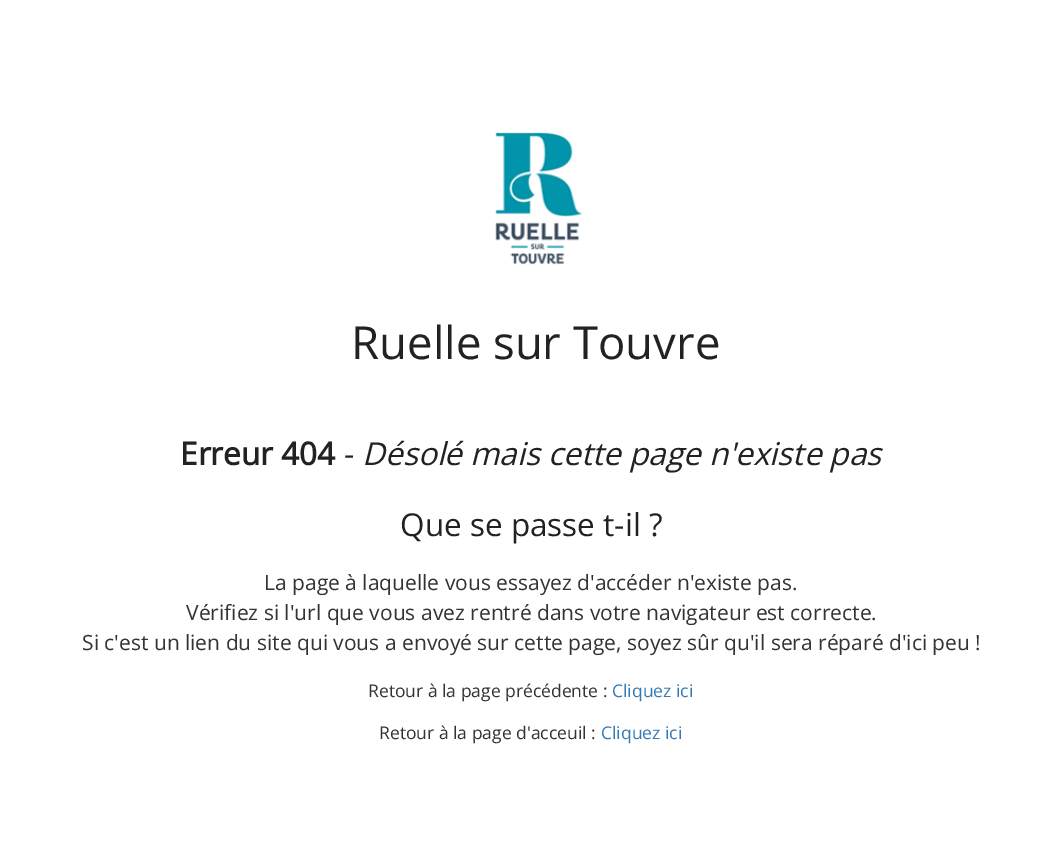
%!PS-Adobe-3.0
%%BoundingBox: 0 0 1061 855
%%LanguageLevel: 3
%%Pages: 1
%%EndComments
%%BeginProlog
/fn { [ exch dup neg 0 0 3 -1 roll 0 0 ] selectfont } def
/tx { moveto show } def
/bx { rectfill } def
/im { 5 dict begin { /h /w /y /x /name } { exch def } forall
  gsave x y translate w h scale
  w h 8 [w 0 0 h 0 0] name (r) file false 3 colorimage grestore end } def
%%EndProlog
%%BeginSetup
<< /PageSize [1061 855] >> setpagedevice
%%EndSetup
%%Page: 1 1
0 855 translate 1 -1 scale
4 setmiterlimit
1 setgray
0 0 1061 855 bx
(image0.raw) 495 132 87 133 im
/OpenSans-Regular 45.5 fn
0.133 setgray
(Ruelle sur Touvre) 351 359 tx
/OpenSans-Bold 31.5 fn
(Erreur 404) 180 465 tx
/OpenSans-Regular 31.5 fn
(-) 344 465 tx
/OpenSans-Italic 31.5 fn
(Désolé mais cette page n'existe pas) 362 465 tx
/OpenSans-Regular 31.5 fn
(Que se passe t-il ?) 400 536 tx
/OpenSans-Regular 21 fn
0.2 setgray
(La page à laquelle vous essayez d'accéder n'existe pas.) 264 590 tx
(Vérifiez si l'url que vous avez rentré dans votre navigateur est correcte.) 186 620 tx
(Si c'est un lien du site qui vous a envoyé sur cette page, soyez sûr qu'il sera réparé d'ici peu !) 82 650 tx
/OpenSans-Regular 17.5 fn
(Retour à la page précédente :) 368 697 tx
0.2 0.478 0.718 setrgbcolor
(Cliquez ici) 612 697 tx
0.2 setgray
(Retour à la page d'acceuil :) 379 739 tx
0.2 0.478 0.718 setrgbcolor
(Cliquez ici) 601 739 tx
showpage
%%EOF
